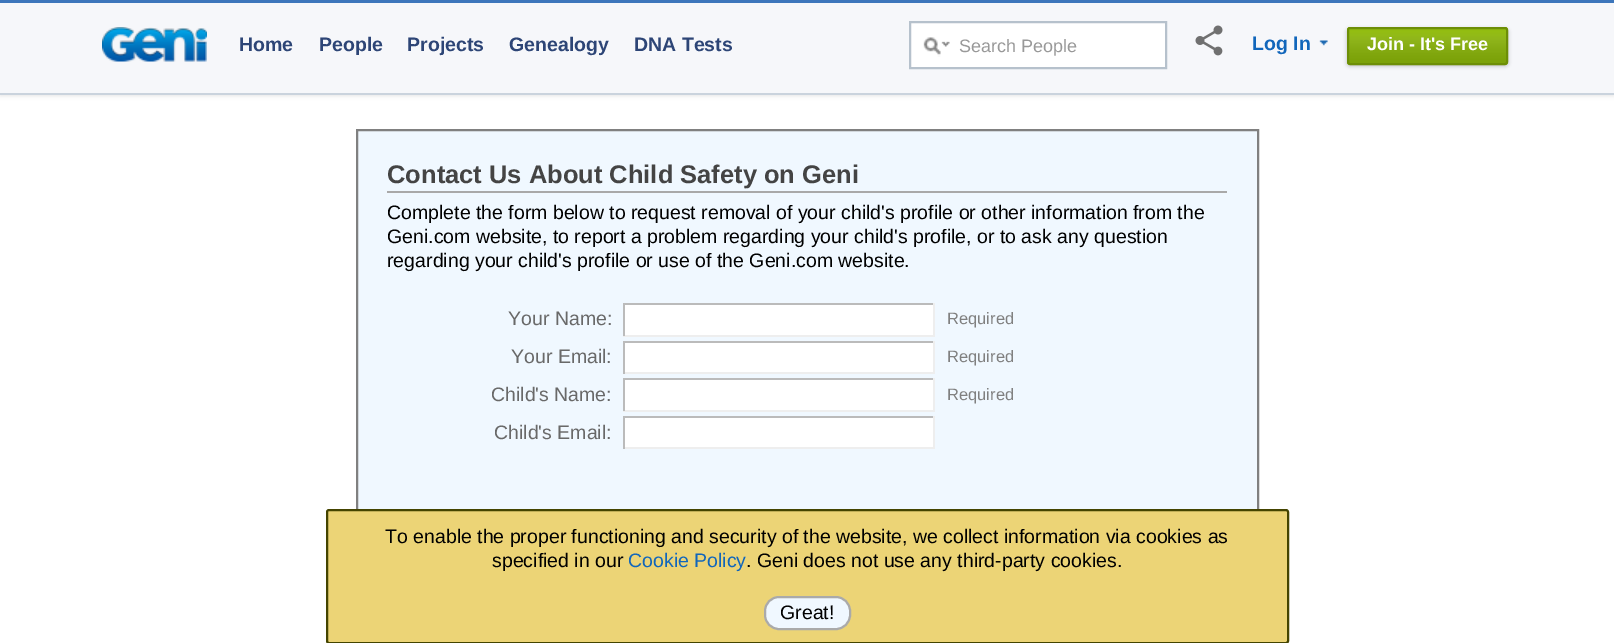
%!PS-Adobe-3.0
%%BoundingBox: 0 0 1614 643
%%LanguageLevel: 3
%%Pages: 1
%%EndComments
%%BeginProlog
/m { moveto } bind def
/l { lineto } bind def
/h { closepath } bind def
/f { fill } bind def
/S { stroke } bind def
/q { gsave } bind def
/Q { grestore } bind def
/w { setlinewidth } bind def
/fn { [ exch dup neg 0 0 3 -1 roll 0 0 ] selectfont } def
/tx { moveto show } def
/bx { rectfill } def
/al { dup .setfillconstantalpha .setstrokeconstantalpha } def
/rr { 5 dict begin { /r /h /w /y /x } { exch def } forall
  x r add y moveto x w add y 2 copy h add r arct x w add y h add x 1 index r arct
  x y h add x y r arct x y 2 copy exch w add exch r arct closepath end } def
/sh { 12 dict begin { /a /b /q /h /w /y /x } { exch def } forall gsave /was 0 def
  9 -2 -9 { dup b mul 4 div /e exch def 1 sub .425 mul 2.718 exch exp 1 add a .99 .min exch div /now exch def
    1 1 now sub 1 was sub div sub al /was now def
    w h .min e 2 mul add 0 gt { x e sub y e sub w e 2 mul add h e 2 mul add
      q e add b .6 mul add w h .min 2 div e add .min 0 .max rr fill } if } for grestore end } def
/im { 5 dict begin { /h /w /y /x /name } { exch def } forall
  gsave x y translate w h scale
  w h 8 [w 0 0 h 0 0] name (r) file false 3 colorimage grestore end } def
%%EndProlog
%%BeginSetup
<< /PageSize [1614 643] /PageUsesTransparency true >> setpagedevice
%%EndSetup
%%Page: 1 1
0 .pushpdf14devicefilter
0 643 translate 1 -1 scale
4 setmiterlimit
1 setgray
0 0 1614 643 bx
0 setgray
0 2 1614 94 0 2 0.1 sh
0.965 0.969 0.98 setrgbcolor
0 3 1614 90 bx
0.239 0.463 0.733 setrgbcolor
0 0 1614 3 bx
0.792 0.827 0.867 setrgbcolor
0 93 1614 2 bx
(image0.raw) 102 27 105 35 im
/LiberationSans-Bold 19.5 fn
0.176 0.271 0.463 setrgbcolor
(Home) 239 51 tx
(People) 319 51 tx
(Projects) 407 51 tx
(Genealogy) 509 51 tx
(DNA Tests) 634 51 tx
1 setgray
910 22 m 1166 22 l 1166 68 l 910 68 l h q f Q
0.714 0.757 0.8 setrgbcolor
2 w
S
(image1.raw) 923 37 27 20 im
/LiberationSans-Regular 18 fn
0.6 setgray
(Search People) 959 52 tx
(image2.raw) 1195 25 28 31 im
/LiberationSans-Bold 19.5 fn
0.067 0.4 0.733 setrgbcolor
(Log In) 1252 50 tx
(image3.raw) 1319 40 9 6 im
0 setgray
1347 29 161 37 3 2 0.25 sh
0.569 0.741 0.035 setrgbcolor
1347 27 161 38 3 rr f
(image4.raw) 1347 29 161 34 im
0.427 0.557 0.024 setrgbcolor
1348 28 159 36 2 rr S
/LiberationSans-Bold 18 fn
1 setgray
(Join - It's Free) 1367 50 tx
0.941 0.973 1 setrgbcolor
358 131 899 378 bx
0.502 setgray
357 130 901 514 rectstroke
0.663 setgray
387 191 840 2 bx
/LiberationSans-Bold 25.5 fn
0.267 setgray
(Contact Us About Child Safety on Geni) 387 183 tx
/LiberationSans-Regular 19.5 fn
0 setgray
(Complete the form below to request removal of your child's profile or other information from the) 387 219 tx
(Geni.com website, to report a problem regarding your child's profile, or to ask any question) 387 243 tx
(regarding your child's profile or use of the Geni.com website.) 387 267 tx
0.412 setgray
(Your Name:) 508 325 tx
1 setgray
625 305 308 30 bx
0.733 setgray
623 303 312 2 bx
0.933 setgray
933 303 2 33 bx
623 335 312 2 bx
0.733 setgray
623 303 2 33 bx
/LiberationSans-Regular 16.5 fn
0.502 setgray
(Required) 947 324 tx
/LiberationSans-Regular 19.5 fn
0.412 setgray
(Your Email:) 511 363 tx
1 setgray
625 343 308 29 bx
0.733 setgray
623 341 312 2 bx
0.933 setgray
933 341 2 33 bx
623 372 312 2 bx
0.733 setgray
623 341 2 33 bx
/LiberationSans-Regular 16.5 fn
0.502 setgray
(Required) 947 362 tx
/LiberationSans-Regular 19.5 fn
0.412 setgray
(Child's Name:) 491 401 tx
1 setgray
625 380 308 30 bx
0.733 setgray
623 378 312 2 bx
0.933 setgray
933 378 2 33 bx
623 410 312 2 bx
0.733 setgray
623 378 2 33 bx
/LiberationSans-Regular 16.5 fn
0.502 setgray
(Required) 947 400 tx
/LiberationSans-Regular 19.5 fn
0.412 setgray
(Child's Email:) 494 439 tx
1 setgray
625 418 308 29 bx
0.733 setgray
623 416 312 2 bx
0.933 setgray
933 416 2 33 bx
623 447 312 2 bx
0.733 setgray
623 416 2 33 bx
0.925 0.831 0.463 setrgbcolor
327 510 961 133 2 rr q f Q
0.267 0.267 0 setrgbcolor
S
0 setgray
(To enable the proper functioning and security of the website, we collect information via cookies as) 385 543 tx
(specified in our) 492 567 tx
0.067 0.4 0.733 setrgbcolor
(Cookie Policy) 628 567 tx
0 setgray
(. Geni does not use any third-party cookies.) 746 567 tx
0.941 0.973 1 setrgbcolor
765 597 85 32 14 rr q f Q
0.667 setgray
S
0 setgray
(Great!) 780 619 tx
.poppdf14devicefilter showpage
%%EOF
